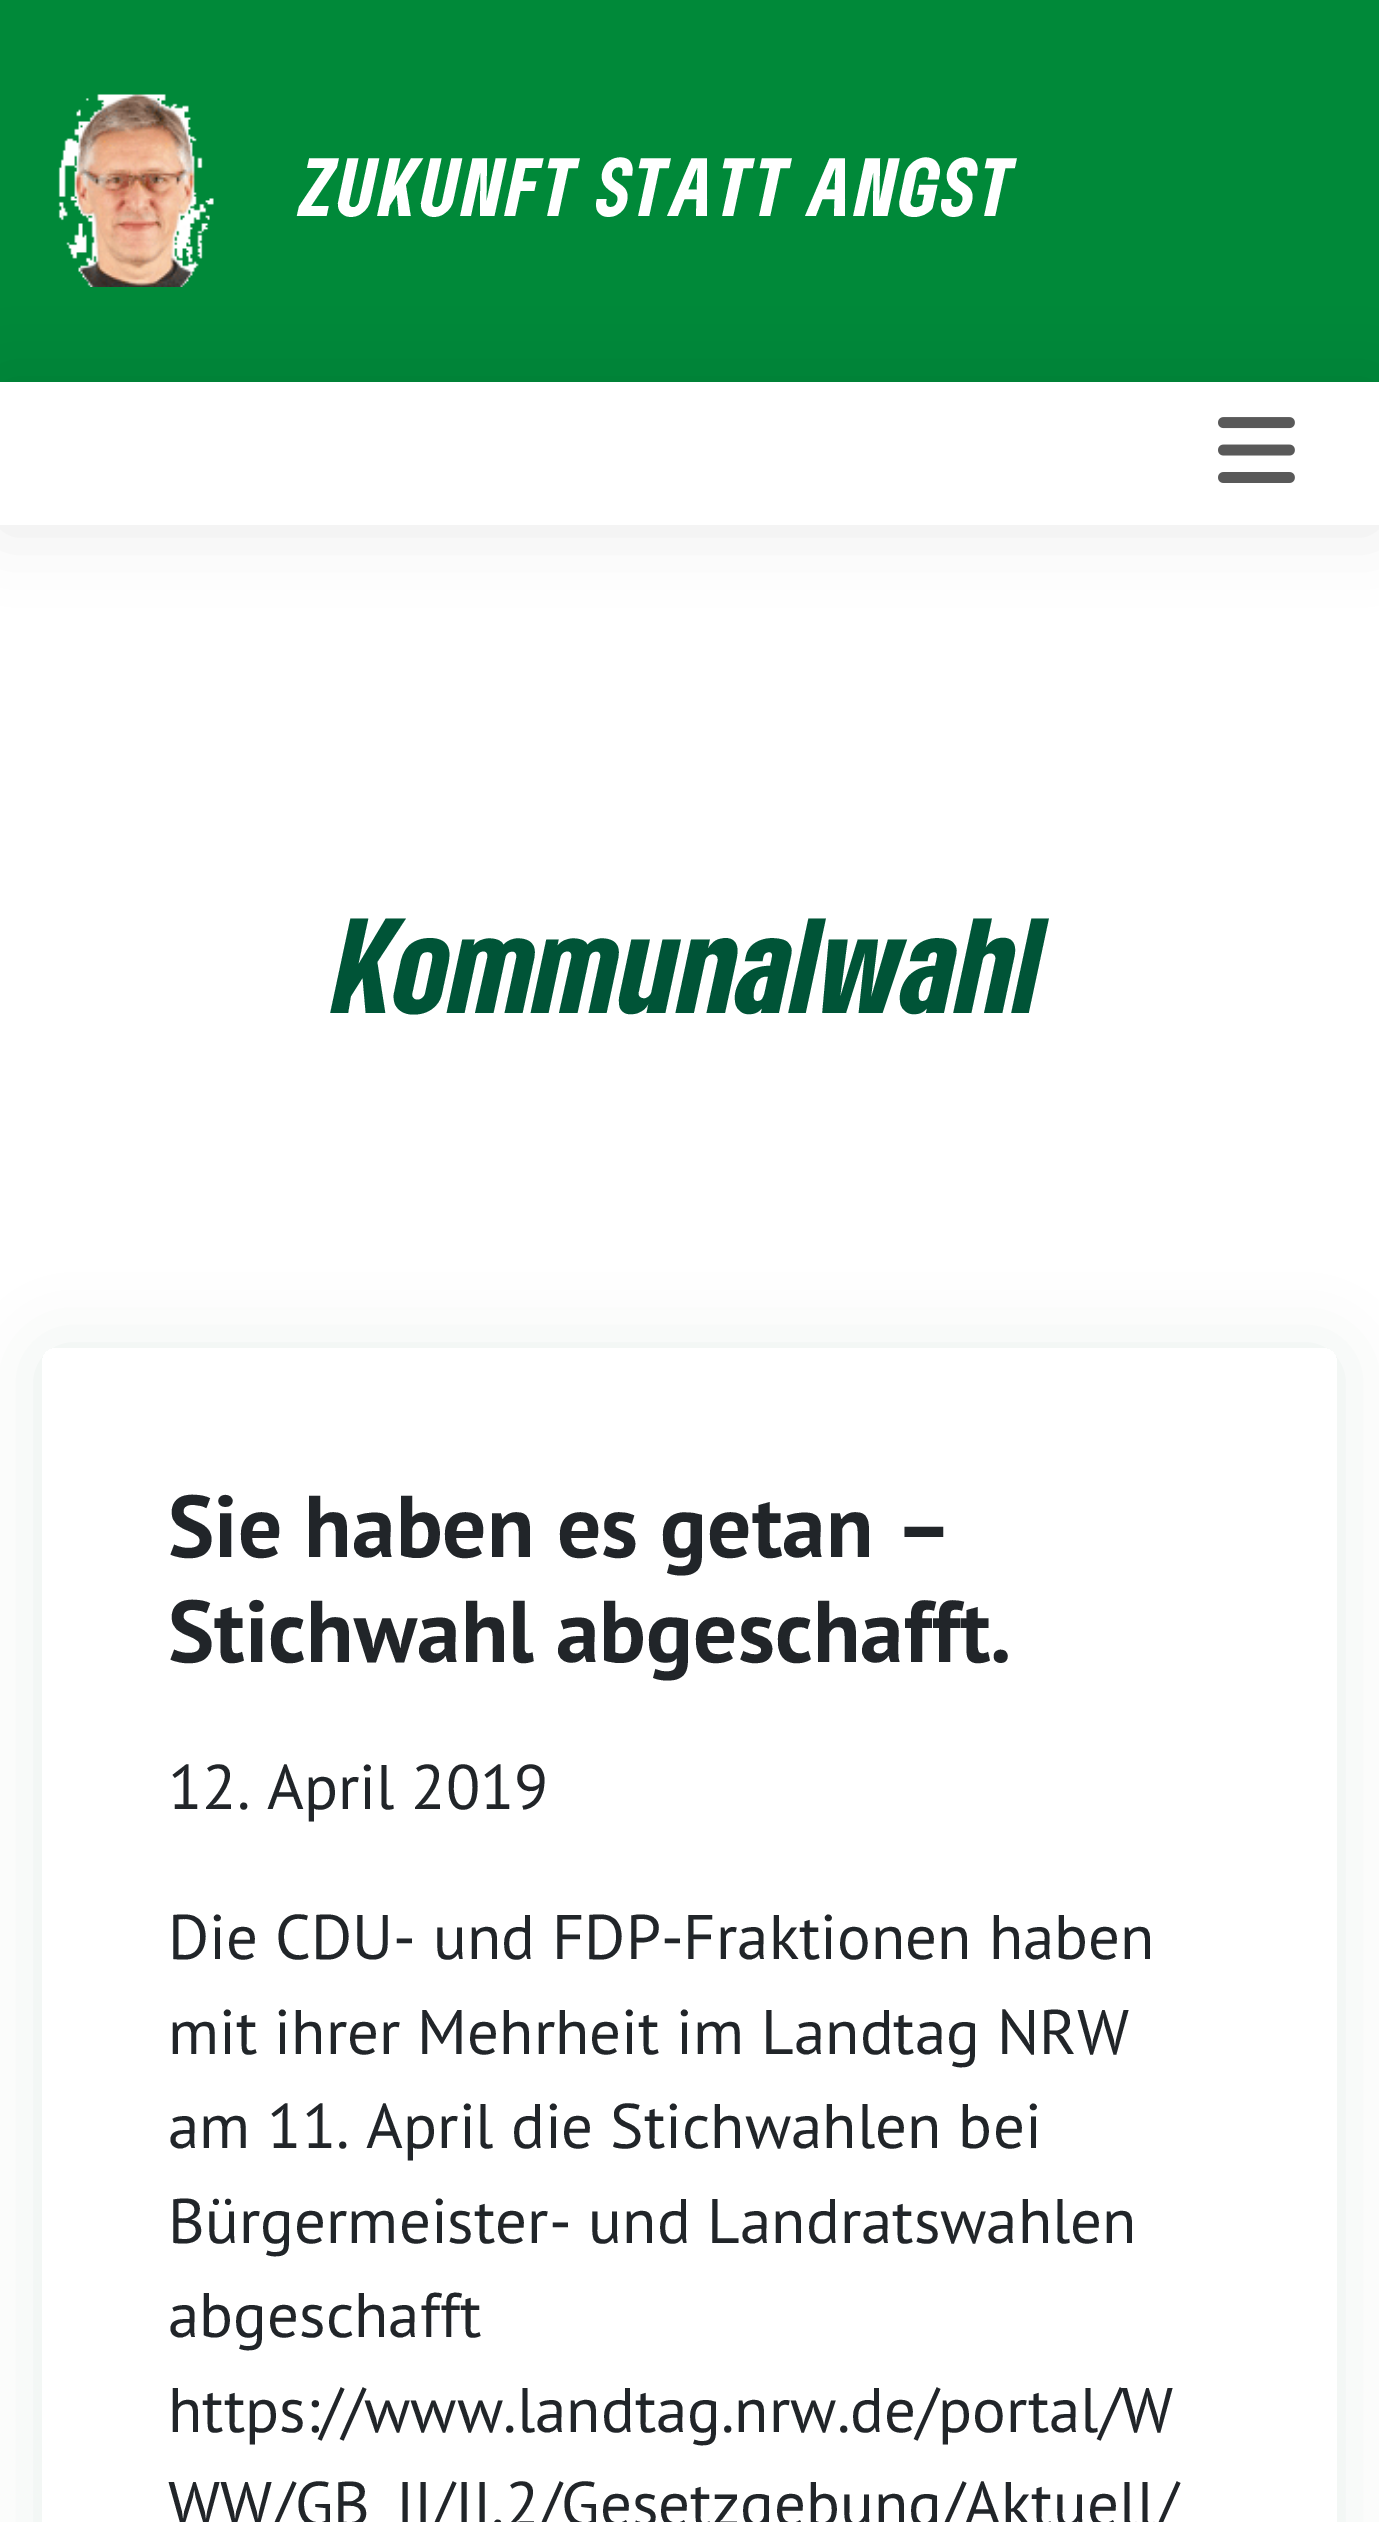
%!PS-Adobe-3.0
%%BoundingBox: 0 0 1379 2522
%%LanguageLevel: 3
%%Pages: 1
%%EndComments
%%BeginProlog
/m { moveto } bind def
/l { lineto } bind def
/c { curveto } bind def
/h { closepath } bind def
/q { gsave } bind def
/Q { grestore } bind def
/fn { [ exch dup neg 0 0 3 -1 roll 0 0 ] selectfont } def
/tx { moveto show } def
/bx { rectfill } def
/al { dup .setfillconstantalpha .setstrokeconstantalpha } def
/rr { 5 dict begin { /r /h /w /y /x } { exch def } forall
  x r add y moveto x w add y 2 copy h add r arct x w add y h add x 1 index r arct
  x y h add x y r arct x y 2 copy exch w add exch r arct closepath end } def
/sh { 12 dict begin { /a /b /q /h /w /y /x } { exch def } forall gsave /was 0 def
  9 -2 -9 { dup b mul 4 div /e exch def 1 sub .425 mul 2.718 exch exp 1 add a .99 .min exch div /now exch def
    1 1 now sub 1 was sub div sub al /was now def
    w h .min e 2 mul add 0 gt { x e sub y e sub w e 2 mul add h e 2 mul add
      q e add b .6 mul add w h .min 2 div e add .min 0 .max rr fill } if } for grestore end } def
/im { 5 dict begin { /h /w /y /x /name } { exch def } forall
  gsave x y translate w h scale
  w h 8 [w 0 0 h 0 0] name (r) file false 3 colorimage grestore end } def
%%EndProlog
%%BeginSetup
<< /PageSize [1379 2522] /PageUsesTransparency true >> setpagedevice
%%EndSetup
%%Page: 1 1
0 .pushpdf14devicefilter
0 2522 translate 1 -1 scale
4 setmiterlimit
1 setgray
0 0 1379 2522 bx
0 0.537 0.224 setrgbcolor
0 0 1379 382 bx
(image0.raw) 58 94 156 193 im
/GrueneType-Black 77 fn
1 setgray
301 216 m 3.5 0 (ZUKUNFT STATT ANGST) ashow
q
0 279 m 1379 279 l 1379 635 l 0 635 l h 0 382 m 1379 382 l 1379 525 l 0 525 l h eoclip newpath
0 setgray
0 385 1379 144 0 35 0.08 sh
Q
(image1.raw) 1218 417 77 66 im
/GrueneType-Black 126 fn
0 0.329 0.216 setrgbcolor
(Kommunalwahl) 335 1013 tx
q
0 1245 m 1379 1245 l 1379 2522 l 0 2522 l h 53 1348 m 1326 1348 l 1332 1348 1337 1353 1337 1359 c 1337 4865 l 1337 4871 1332 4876 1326 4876 c 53 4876 l 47 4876 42 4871 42 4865 c 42 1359 l 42 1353 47 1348 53 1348 c h eoclip newpath
42 1351 1295 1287 11 35 0.09 sh
Q
/PTSans-Bold 87.5 fn
0.129 0.145 0.161 setrgbcolor
(Sie haben es getan –) 168 1557 tx
(Stichwahl abgeschafft.) 168 1662 tx
/PTSans-Regular 63 fn
(12. April 2019) 168 1809 tx
(Die CDU- und FDP-Fraktionen haben) 168 1959 tx
(mit ihrer Mehrheit im Landtag NRW) 168 2054 tx
(am 11. April die Stichwahlen bei) 168 2148 tx
(Bürgermeister- und Landratswahlen) 168 2243 tx
(abgeschafft) 168 2337 tx
(https://www.landtag.nrw.de/portal/W) 168 2432 tx
(WW/GB_II/II.2/Gesetzgebung/Aktuell/) 168 2526 tx
.poppdf14devicefilter showpage
%%EOF
